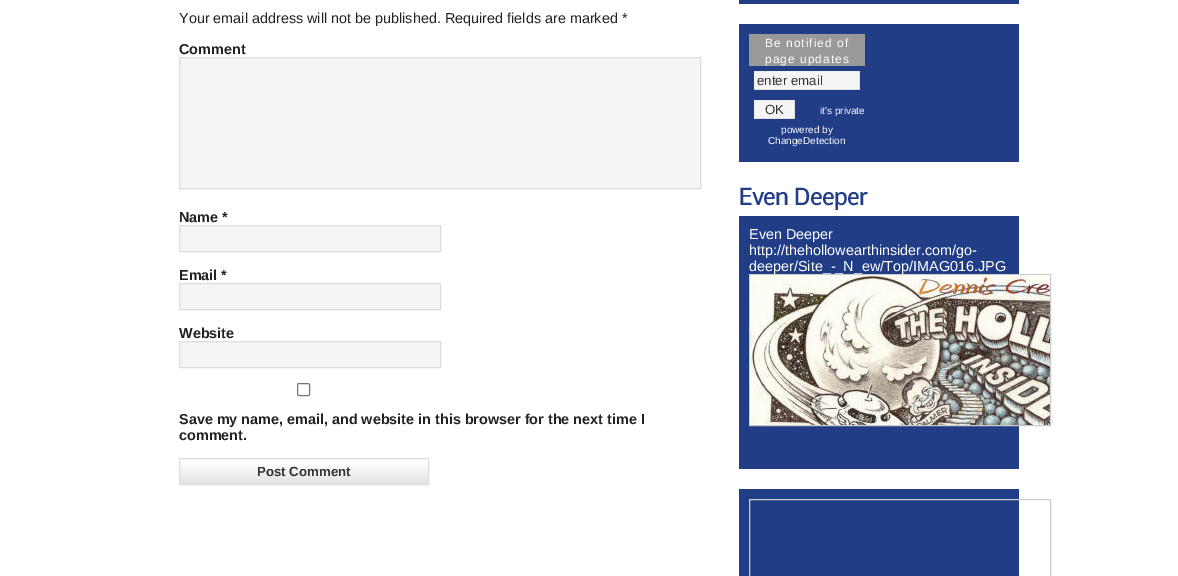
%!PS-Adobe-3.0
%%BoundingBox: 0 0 1178 576
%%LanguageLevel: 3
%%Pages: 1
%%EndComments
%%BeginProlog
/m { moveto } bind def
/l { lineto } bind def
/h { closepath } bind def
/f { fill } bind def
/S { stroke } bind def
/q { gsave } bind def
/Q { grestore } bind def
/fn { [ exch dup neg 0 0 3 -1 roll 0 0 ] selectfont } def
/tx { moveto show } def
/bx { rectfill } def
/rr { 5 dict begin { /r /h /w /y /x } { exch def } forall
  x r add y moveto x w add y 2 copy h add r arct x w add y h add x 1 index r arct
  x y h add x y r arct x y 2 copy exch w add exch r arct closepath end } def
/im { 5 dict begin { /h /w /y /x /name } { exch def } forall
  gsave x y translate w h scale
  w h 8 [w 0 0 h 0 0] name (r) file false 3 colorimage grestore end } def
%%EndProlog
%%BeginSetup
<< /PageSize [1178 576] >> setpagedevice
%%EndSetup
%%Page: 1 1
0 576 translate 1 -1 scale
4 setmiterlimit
1 setgray
0 0 1178 576 bx
/LiberationSans-Regular 14.4 fn
0.133 setgray
(Your email address will not be published. Required fields are marked *) 179 23 tx
/LiberationSans-Bold 14.4 fn
(Comment) 179 54 tx
0.961 setgray
179.5 57.5 m 700.5 57.5 l 700.5 188.5 l 179.5 188.5 l h q f Q
0.867 setgray
S
0.133 setgray
(Name *) 179 222 tx
0.961 setgray
179.5 225.5 m 440.5 225.5 l 440.5 251.5 l 179.5 251.5 l h q f Q
0.867 setgray
S
0.133 setgray
(Email *) 179 280 tx
0.961 setgray
179.5 283.5 m 440.5 283.5 l 440.5 309.5 l 179.5 309.5 l h q f Q
0.867 setgray
S
0.133 setgray
(Website) 179 338 tx
0.961 setgray
179.5 341.5 m 440.5 341.5 l 440.5 367.5 l 179.5 367.5 l h q f Q
0.867 setgray
S
0.463 setgray
297.5 383.5 12 12 1.5 rr S
0.133 setgray
(Save my name, email, and website in this browser for the next time I) 179 424 tx
(comment.) 179 440 tx
(image0.raw) 180 459 248 25 im
0.867 setgray
179.5 458.5 249 26 rectstroke
/LiberationSans-Bold 13.25 fn
0.2 setgray
(Post Comment) 257 476 tx
0.129 0.239 0.525 setrgbcolor
739 0 280 4 bx
739 24 280 138 bx
0.6 setgray
749 34 116 32 bx
/LiberationSans-Regular 12 fn
1 setgray
765 47 m 1 0 (Be notified of) ashow
765 63 m 1 0 (page updates) ashow
0.961 setgray
755 72 104 17 bx
0.933 setgray
754 71 106 1 bx
0.867 setgray
859 71 1 19 bx
754 89 106 1 bx
0.933 setgray
754 71 1 19 bx
/LiberationSans-Regular 13.25 fn
0.2 setgray
(enter email) 757 85 tx
0.961 setgray
755 101 39 17 bx
0.933 setgray
754 100 41 1 bx
0.867 setgray
794 100 1 19 bx
754 118 41 1 bx
0.933 setgray
754 100 1 19 bx
0.2 setgray
(OK) 765 114 tx
/LiberationSans-Regular 10 fn
1 setgray
(it's private) 820 114 tx
(powered by) 781 133 tx
(ChangeDetection) 768 144 tx
/Nobile-Bold 21.5 fn
0.129 0.239 0.525 setrgbcolor
(Even Deeper) 739 205 tx
739 216 280 253 bx
/LiberationSans-Regular 14.4 fn
1 setgray
(Even Deeper) 749 239 tx
(http://thehollowearthinsider.com/go-) 749 255 tx
(deeper/Site_-_N_ew/Top/IMAG016.JPG) 749 271 tx
0.8 setgray
749.5 274.5 301 151 rectstroke
(image1.raw) 750 275 300 150 im
0.129 0.239 0.525 setrgbcolor
739 489 280 87 bx
0.8 setgray
749.5 499.5 301 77 rectstroke
showpage
%%EOF
